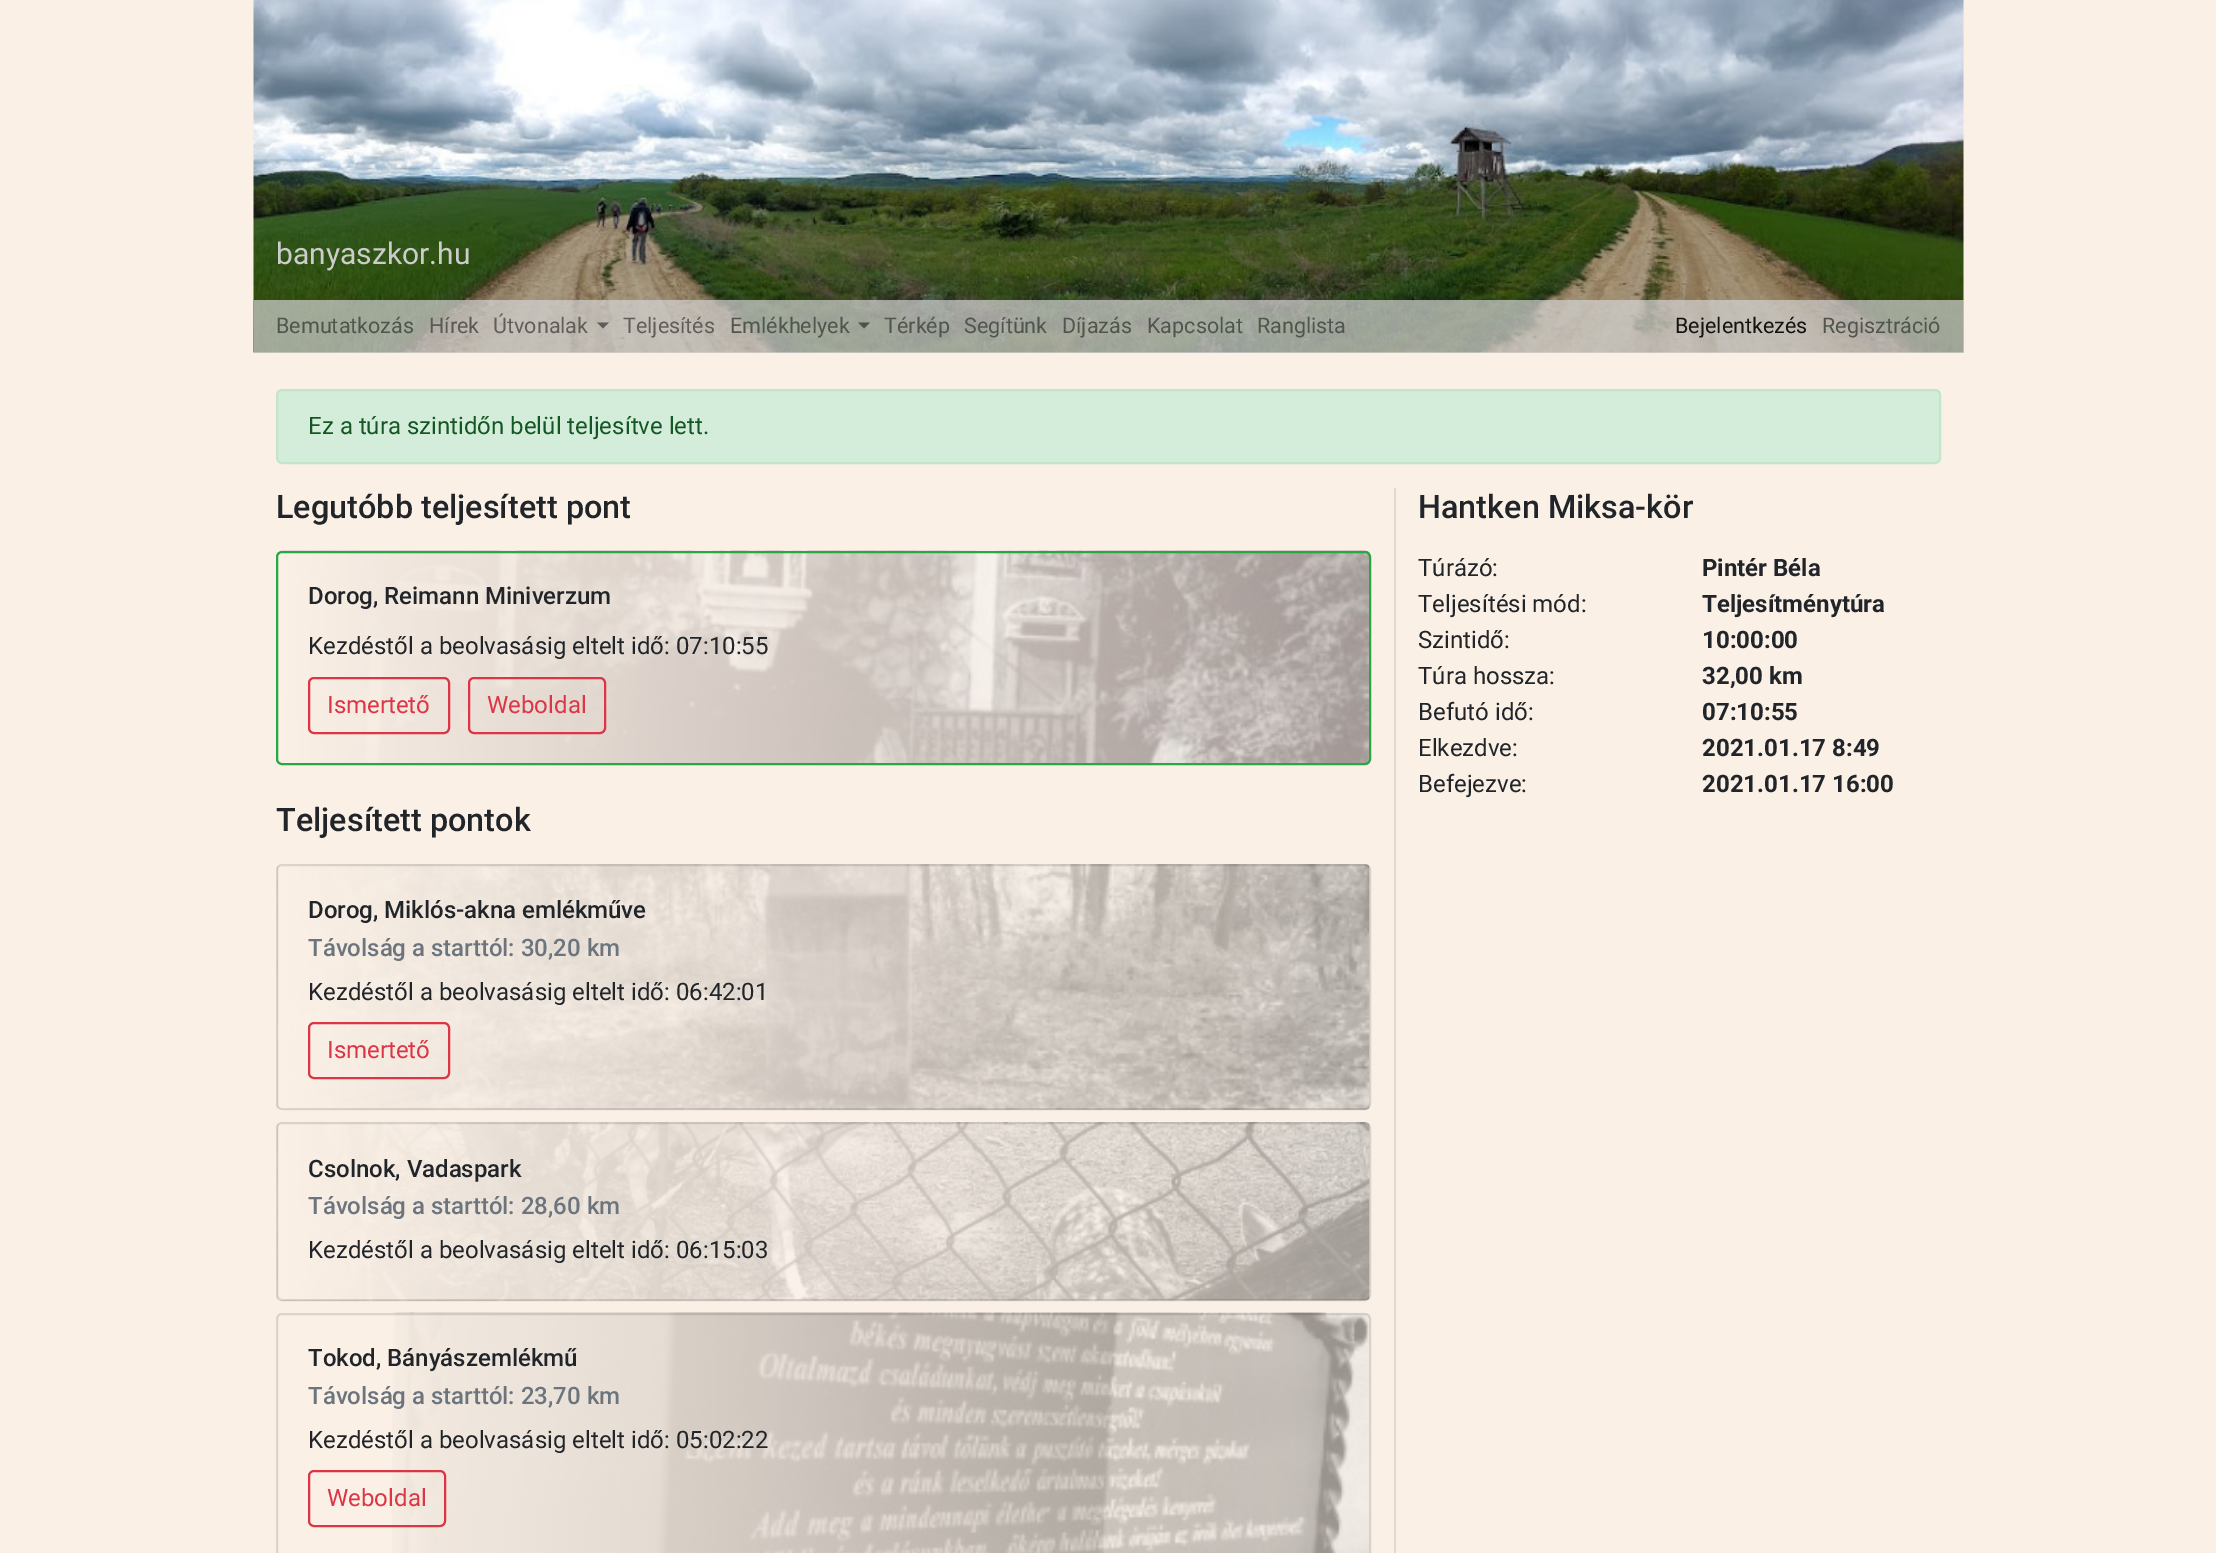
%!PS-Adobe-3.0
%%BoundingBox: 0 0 2216 1553
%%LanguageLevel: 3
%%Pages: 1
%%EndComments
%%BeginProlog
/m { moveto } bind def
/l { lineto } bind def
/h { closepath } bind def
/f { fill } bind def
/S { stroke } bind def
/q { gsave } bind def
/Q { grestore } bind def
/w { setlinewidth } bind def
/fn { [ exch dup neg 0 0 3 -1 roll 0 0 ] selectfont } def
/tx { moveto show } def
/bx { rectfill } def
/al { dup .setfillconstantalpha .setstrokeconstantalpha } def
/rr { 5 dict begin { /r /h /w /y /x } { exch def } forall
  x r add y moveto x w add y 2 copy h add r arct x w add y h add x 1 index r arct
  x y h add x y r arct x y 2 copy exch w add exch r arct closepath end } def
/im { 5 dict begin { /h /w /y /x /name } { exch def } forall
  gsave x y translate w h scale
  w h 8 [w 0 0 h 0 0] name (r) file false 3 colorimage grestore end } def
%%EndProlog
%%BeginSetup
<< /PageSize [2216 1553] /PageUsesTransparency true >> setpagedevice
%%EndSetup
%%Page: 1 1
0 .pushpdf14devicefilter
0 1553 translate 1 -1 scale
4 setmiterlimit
0.98 0.941 0.902 setrgbcolor
0 0 2216 1553 bx
(image0.raw) 253 0 1711 353 im
/Roboto-Regular 30 fn
0.8 setgray
(banyaszkor.hu) 276 264 tx
0.7 al
0.827 setgray
254 300 1710 53 bx
/Roboto-Regular 21.5 fn
1 al
0.314 0.333 0.302 setrgbcolor
(Bemutatkozás) 276 333 tx
0.357 0.349 0.333 setrgbcolor
(Hírek) 429 333 tx
0.38 0.369 0.353 setrgbcolor
(Útvonalak) 493 333 tx
0.5 al
0 setgray
597 322.5 m 609 322.5 l 603 328.5 l h f
1 al
0.38 0.369 0.353 setrgbcolor
(Teljesítés) 623 333 tx
0.314 0.333 0.302 setrgbcolor
(Emlékhelyek) 730 333 tx
0.5 al
0 setgray
858 322.5 m 870 322.5 l 864 328.5 l h f
1 al
0.314 0.333 0.302 setrgbcolor
(Térkép) 884 333 tx
(Segítünk) 964 333 tx
(Díjazás) 1062 333 tx
(Kapcsolat) 1147 333 tx
(Ranglista) 1257 333 tx
0.075 0.075 0.071 setrgbcolor
(Bejelentkezés) 1675 333 tx
0.314 0.333 0.302 setrgbcolor
(Regisztráció) 1822 333 tx
0.831 0.929 0.855 setrgbcolor
277 390 1663 73 5 rr q f Q
0.765 0.902 0.796 setrgbcolor
2 w
S
/Roboto-Regular 24 fn
0.082 0.341 0.141 setrgbcolor
(Ez a túra szintidőn belül teljesítve lett.) 308 434 tx
/Roboto-Medium 32.4 fn
0.129 0.145 0.161 setrgbcolor
(Legutóbb teljesített pont) 276 518 tx
(image1.raw) 277 550 1093 215 im
0.157 0.655 0.271 setrgbcolor
277 552 1093 212 5 rr S
/Roboto-Medium 24 fn
0.129 0.145 0.161 setrgbcolor
(Dorog, Reimann Miniverzum) 308 604 tx
/Roboto-Regular 24 fn
(Kezdéstől a beolvasásig eltelt idő: 07:10:55) 308 654 tx
0.863 0.208 0.271 setrgbcolor
309 678 140 55 5 rr S
(Ismertető) 327 713 tx
469 678 136 55 5 rr S
(Weboldal) 487 713 tx
/Roboto-Medium 32.4 fn
0.129 0.145 0.161 setrgbcolor
(Teljesített pontok) 276 831 tx
(image2.raw) 277 864 1093 246 im
0.12 al
0 setgray
277 865 1093 244 5 rr S
/Roboto-Medium 24 fn
1 al
0.129 0.145 0.161 setrgbcolor
(Dorog, Miklós-akna emlékműve) 308 918 tx
0.424 0.459 0.49 setrgbcolor
(Távolság a starttól: 30,20 km) 308 956 tx
/Roboto-Regular 24 fn
0.129 0.145 0.161 setrgbcolor
(Kezdéstől a beolvasásig eltelt idő: 06:42:01) 308 1000 tx
0.863 0.208 0.271 setrgbcolor
309 1023 140 55 5 rr S
(Ismertető) 327 1058 tx
(image3.raw) 277 1122 1093 179 im
0.12 al
0 setgray
277 1123 1093 177 5 rr S
/Roboto-Medium 24 fn
1 al
0.129 0.145 0.161 setrgbcolor
(Csolnok, Vadaspark) 308 1177 tx
0.424 0.459 0.49 setrgbcolor
(Távolság a starttól: 28,60 km) 308 1214 tx
/Roboto-Regular 24 fn
0.129 0.145 0.161 setrgbcolor
(Kezdéstől a beolvasásig eltelt idő: 06:15:03) 308 1258 tx
(image4.raw) 392 1312 978 241 im
0.12 al
0 setgray
277 1314 1093 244 5 rr S
/Roboto-Medium 24 fn
1 al
0.129 0.145 0.161 setrgbcolor
(Tokod, Bányászemlékmű) 308 1366 tx
0.424 0.459 0.49 setrgbcolor
(Távolság a starttól: 23,70 km) 308 1404 tx
/Roboto-Regular 24 fn
0.129 0.145 0.161 setrgbcolor
(Kezdéstől a beolvasásig eltelt idő: 05:02:22) 308 1448 tx
0.863 0.208 0.271 setrgbcolor
309 1471 136 55 5 rr S
(Weboldal) 327 1506 tx
0.882 0.847 0.812 setrgbcolor
1394 488 2 1065 bx
/Roboto-Medium 32.4 fn
0.129 0.145 0.161 setrgbcolor
(Hantken Miksa-kör) 1418 518 tx
/Roboto-Regular 24 fn
(Túrázó:) 1418 576 tx
/Roboto-Bold 24 fn
(Pintér Béla) 1702 576 tx
/Roboto-Regular 24 fn
(Teljesítési mód:) 1418 612 tx
/Roboto-Bold 24 fn
(Teljesítménytúra) 1702 612 tx
/Roboto-Regular 24 fn
(Szintidő:) 1418 648 tx
/Roboto-Bold 24 fn
(10:00:00) 1702 648 tx
/Roboto-Regular 24 fn
(Túra hossza:) 1418 684 tx
/Roboto-Bold 24 fn
(32,00 km) 1702 684 tx
/Roboto-Regular 24 fn
(Befutó idő:) 1418 720 tx
/Roboto-Bold 24 fn
(07:10:55) 1702 720 tx
/Roboto-Regular 24 fn
(Elkezdve:) 1418 756 tx
/Roboto-Bold 24 fn
(2021.01.17 8:49) 1702 756 tx
/Roboto-Regular 24 fn
(Befejezve:) 1418 792 tx
/Roboto-Bold 24 fn
(2021.01.17 16:00) 1702 792 tx
.poppdf14devicefilter showpage
%%EOF
